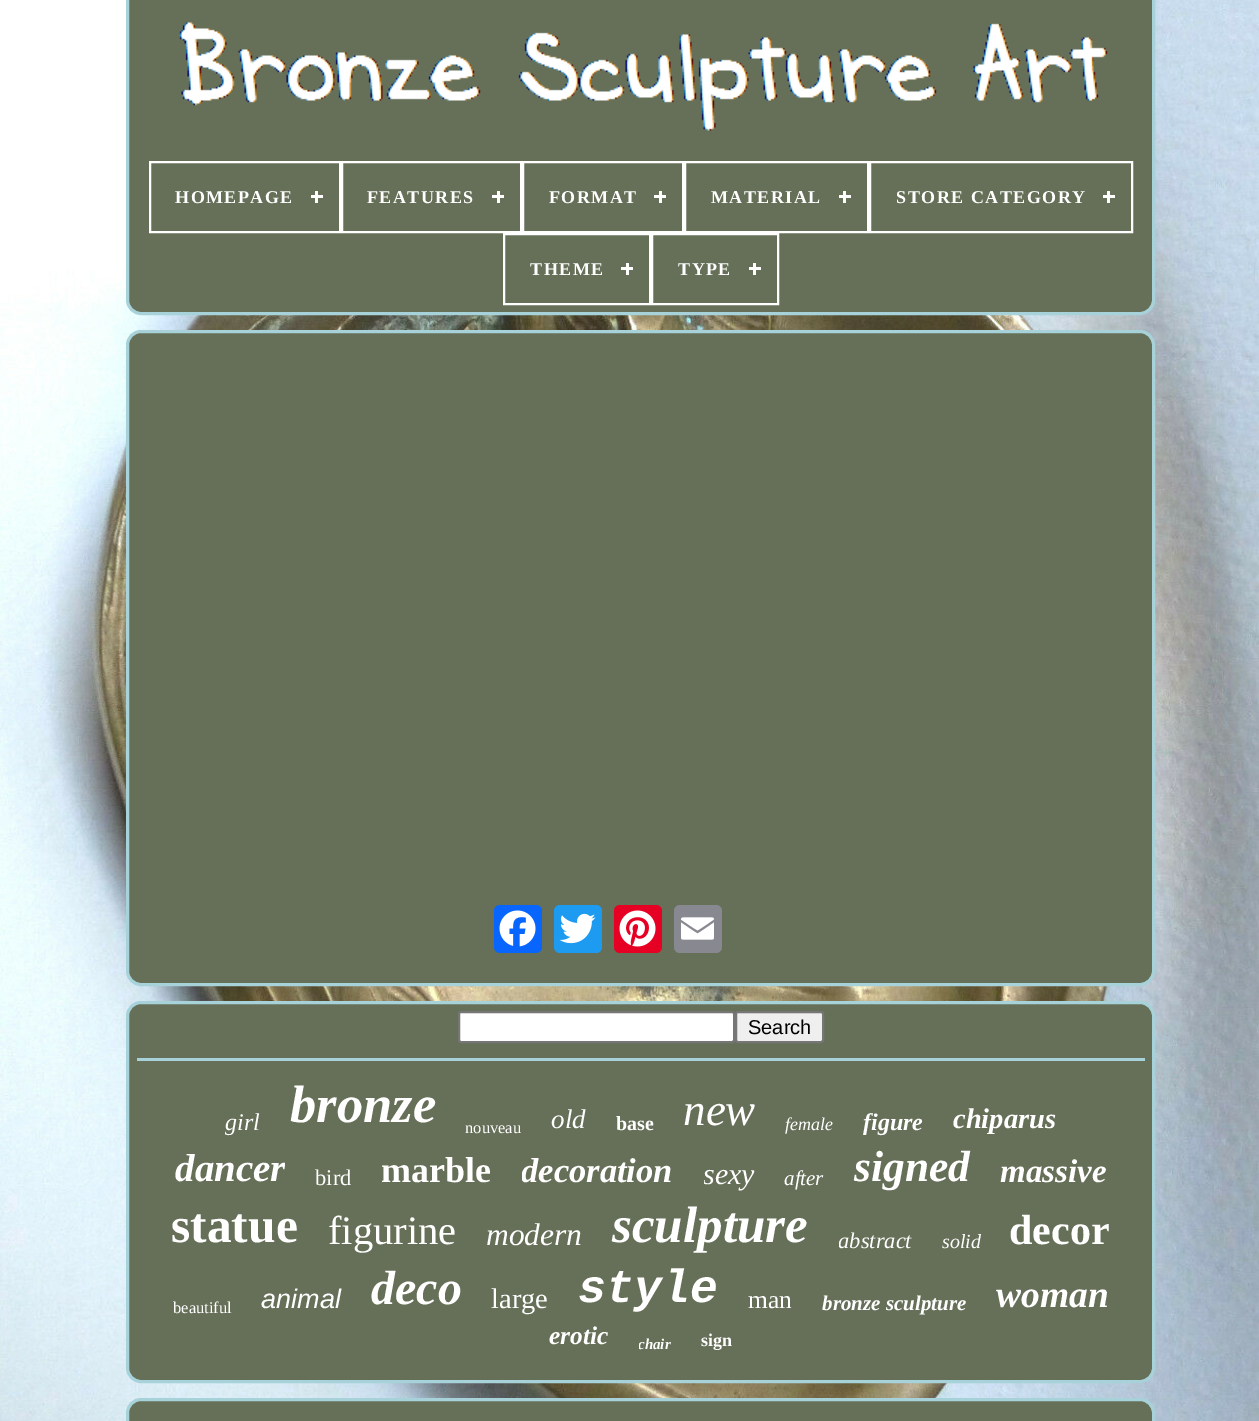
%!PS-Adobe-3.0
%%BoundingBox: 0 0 1259 1421
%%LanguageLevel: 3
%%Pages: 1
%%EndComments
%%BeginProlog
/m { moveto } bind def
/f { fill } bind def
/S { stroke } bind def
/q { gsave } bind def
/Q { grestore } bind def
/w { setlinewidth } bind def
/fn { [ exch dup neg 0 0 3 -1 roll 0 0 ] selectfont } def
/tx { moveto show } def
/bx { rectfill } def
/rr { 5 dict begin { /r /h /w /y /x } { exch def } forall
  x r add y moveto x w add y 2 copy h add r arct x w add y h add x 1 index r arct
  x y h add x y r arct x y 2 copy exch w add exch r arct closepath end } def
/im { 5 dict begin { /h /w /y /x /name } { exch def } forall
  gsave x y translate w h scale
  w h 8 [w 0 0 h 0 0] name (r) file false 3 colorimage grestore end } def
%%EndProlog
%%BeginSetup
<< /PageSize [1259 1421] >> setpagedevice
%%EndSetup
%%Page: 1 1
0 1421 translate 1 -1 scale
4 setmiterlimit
1 setgray
0 0 1259 1421 bx
(image0.raw) 0 0 1259 1421 im
0.4 0.439 0.345 setrgbcolor
127.5 -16.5 1026 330 13.5 rr q f Q
0.655 0.824 0.851 setrgbcolor
3 w
S
(image1.raw) 179 22 929 109 im
1 setgray
2 w
150 162 190 70 rectstroke
/LiberationSerif-Bold 18 fn
175 203 m 1.5 0 (HOMEPAGE) ashow
315 191 3 12 bx
311 195 12 3 bx
342 162 179 70 rectstroke
367 203 m 1.5 0 (FEATURES) ashow
497 191 3 12 bx
492 195 12 3 bx
523 162 160 70 rectstroke
549 203 m 1.5 0 (FORMAT) ashow
659 191 3 12 bx
654 195 12 3 bx
685 162 183 70 rectstroke
711 203 m 1.5 0 (MATERIAL) ashow
843 191 3 12 bx
839 195 12 3 bx
870 162 262 70 rectstroke
896 203 m 1.5 0 (STORE CATEGORY) ashow
1107 191 3 12 bx
1103 195 12 3 bx
504 234 146 70 rectstroke
530 275 m 1.5 0 (THEME) ashow
626 263 3 12 bx
621 267 12 3 bx
652 234 126 70 rectstroke
678 275 m 1.5 0 (TYPE) ashow
753 263 3 12 bx
749 267 12 3 bx
0.4 0.439 0.345 setrgbcolor
127.5 331.5 1026 653 13.5 rr q f Q
0.655 0.824 0.851 setrgbcolor
3 w
S
0.031 0.4 1 setrgbcolor
494 905 48 48 6 rr f
(image2.raw) 499 910 37 37 im
0.114 0.608 0.941 setrgbcolor
554 905 48 48 6 rr f
(image3.raw) 559 913 37 31 im
0.902 0 0.137 setrgbcolor
614 905 48 48 6 rr f
(image4.raw) 619 910 37 37 im
0.533 0.537 0.565 setrgbcolor
674 905 48 48 6 rr f
(image5.raw) 681 917 33 23 im
0.4 0.439 0.345 setrgbcolor
127.5 1002.5 1026 379 13.5 rr q f Q
0.655 0.824 0.851 setrgbcolor
S
1 setgray
459 1012 275 30 2 rr q f Q
0.463 setgray
2 w
S
0.937 setgray
736 1012 87 30 2 rr q f Q
0.463 setgray
S
/LiberationSans-Regular 20 fn
0 setgray
(Search) 748 1034 tx
0.655 0.824 0.851 setrgbcolor
137 1058 1008 3 bx
/LiberationSerif-Italic 24 fn
1 setgray
(girl) 225 1130 tx
/LiberationSerif-BoldItalic 52.5 fn
(bronze) 290 1122 tx
/LiberationSerif-Regular 16.5 fn
(nouveau) 465 1133 tx
/LiberationSerif-Italic 27 fn
(old) 551 1128 tx
/LiberationSerif-Bold 20 fn
(base) 616 1130 tx
/LiberationSerif-Italic 45 fn
(new) 683 1125 tx
/LiberationSerif-Italic 18 fn
(female) 785 1130 tx
/LiberationSerif-BoldItalic 24 fn
(figure) 863 1130 tx
/LiberationSerif-BoldItalic 28.5 fn
(chiparus) 953 1128 tx
q
174 1146 111 45 rectclip
/LiberationSerif-BoldItalic 39 fn
(dancer) 175 1181 tx
Q
/LiberationSerif-Regular 22.5 fn
(bird) 315 1185 tx
/LiberationSerif-Bold 36 fn
(marble) 381 1182 tx
q
522 1152 152 39 rectclip
/LiberationSerif-BoldItalic 34.5 fn
(decoration) 521 1182 tx
Q
q
704 1157 51 34 rectclip
/LiberationSerif-Italic 30 fn
(sexy) 703 1184 tx
Q
/LiberationSerif-Italic 21 fn
(after) 784 1185 tx
/LiberationSerif-BoldItalic 43.5 fn
(signed) 854 1181 tx
/LiberationSerif-BoldItalic 33 fn
(massive) 1000 1182 tx
/LiberationSerif-Bold 49.5 fn
(statue) 171 1242 tx
/LiberationSerif-Regular 40.5 fn
(figurine) 328 1244 tx
/LiberationSerif-Italic 31.5 fn
(modern) 486 1245 tx
/LiberationSerif-BoldItalic 51 fn
(sculpture) 612 1242 tx
q
839 1229 73 25 rectclip
/LiberationSerif-Italic 22.5 fn
(abstract) 838 1248 tx
Q
/LiberationSerif-Italic 20 fn
(solid) 942 1248 tx
/LiberationSerif-Bold 42 fn
(decor) 1009 1244 tx
/LiberationSerif-Regular 16.5 fn
(beautiful) 173 1313 tx
/LiberationSans-Italic 27 fn
(animal) 261 1308 tx
/LiberationSerif-BoldItalic 48 fn
(deco) 371 1304 tx
/LiberationSerif-Regular 28.5 fn
(large) 491 1308 tx
/LiberationMono-BoldItalic 46.5 fn
(style) 578 1302 tx
/LiberationSerif-Regular 25.5 fn
(man) 748 1308 tx
/LiberationSerif-BoldItalic 21 fn
(bronze sculpture) 822 1310 tx
/LiberationSerif-BoldItalic 37.5 fn
(woman) 996 1307 tx
/LiberationSerif-BoldItalic 25.5 fn
(erotic) 549 1344 tx
q
639 1335 32 17 rectclip
/LiberationSerif-BoldItalic 15 fn
(chair) 638 1349 tx
Q
/LiberationSerif-Bold 18 fn
(sign) 701 1346 tx
0.4 0.439 0.345 setrgbcolor
127.5 1399.5 1026 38 13.5 rr q f Q
0.655 0.824 0.851 setrgbcolor
3 w
S
showpage
%%EOF
